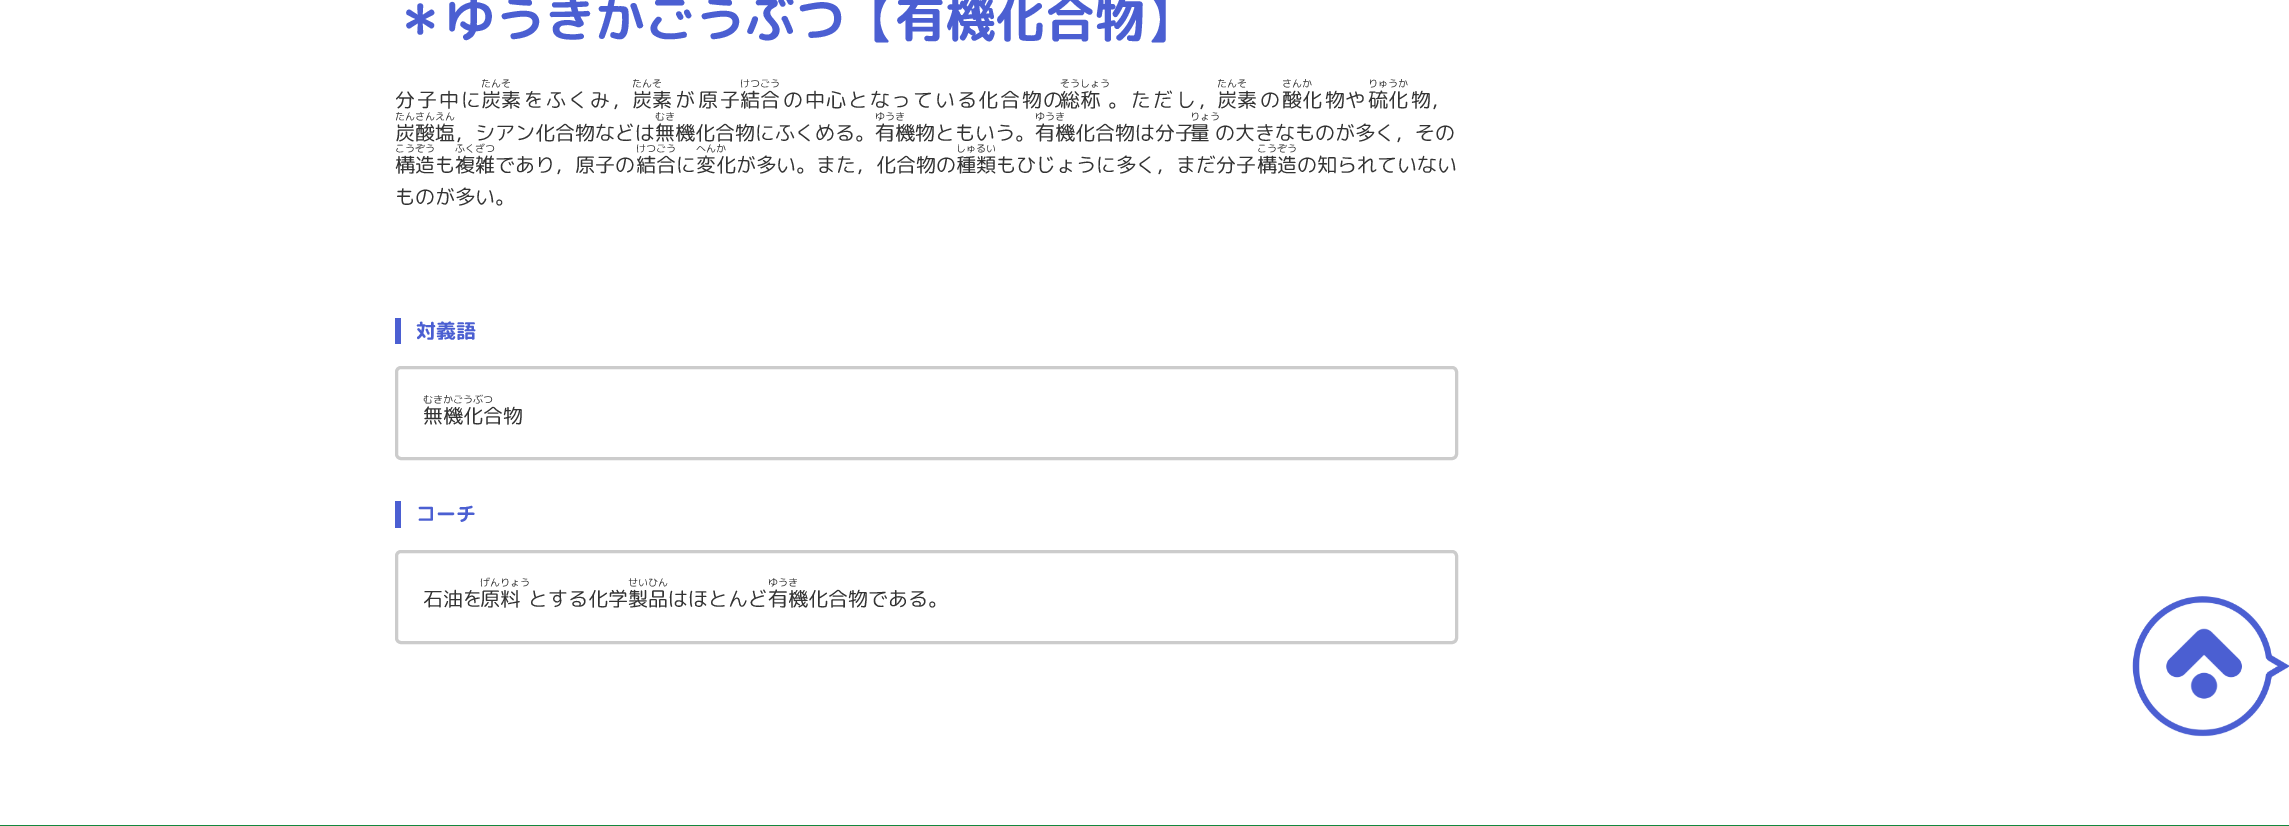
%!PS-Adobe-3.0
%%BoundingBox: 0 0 2289 826
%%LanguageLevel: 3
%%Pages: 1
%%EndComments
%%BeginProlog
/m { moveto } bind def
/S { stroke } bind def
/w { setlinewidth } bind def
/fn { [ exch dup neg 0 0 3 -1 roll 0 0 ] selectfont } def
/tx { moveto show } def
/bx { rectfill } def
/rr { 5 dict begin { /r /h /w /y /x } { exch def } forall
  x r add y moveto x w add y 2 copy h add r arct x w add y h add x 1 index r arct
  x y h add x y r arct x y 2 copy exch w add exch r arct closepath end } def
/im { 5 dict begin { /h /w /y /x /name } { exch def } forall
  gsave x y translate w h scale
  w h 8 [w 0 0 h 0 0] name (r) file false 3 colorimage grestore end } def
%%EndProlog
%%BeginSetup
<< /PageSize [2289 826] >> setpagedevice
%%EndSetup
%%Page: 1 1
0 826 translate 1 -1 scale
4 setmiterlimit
1 setgray
0 0 2289 826 bx
/RoundedMplus1cBold-Bold 50 fn
0.294 0.373 0.824 setrgbcolor
(＊ゆうきかごうぶつ【有機化合物】) 395 37 tx
/RoundedMplus1c-Regular 20 fn
0.2 setgray
395 107 m 2 0 (分子中に) ashow
/RoundedMplus1c-Regular 10 fn
(たんそ) 481 87 tx
/RoundedMplus1c-Regular 20 fn
(炭素) 481 107 tx
524 107 m 2 0 (をふくみ，) ashow
/RoundedMplus1c-Regular 10 fn
(たんそ) 632 87 tx
/RoundedMplus1c-Regular 20 fn
(炭素) 632 107 tx
675 107 m 2.5 0 (が原子) ashow
/RoundedMplus1c-Regular 10 fn
(けつごう) 740 87 tx
/RoundedMplus1c-Regular 20 fn
(結合) 740 107 tx
783 107 m 1.7 0 (の中心となっている化合物の) ashow
/RoundedMplus1c-Regular 10 fn
(そうしょう) 1060 87 tx
/RoundedMplus1c-Regular 20 fn
(総称) 1060 107 tx
1108 107 m 2.5 0 (。ただし，) ashow
/RoundedMplus1c-Regular 10 fn
(たんそ) 1217 87 tx
/RoundedMplus1c-Regular 20 fn
(炭素) 1217 107 tx
(の) 1260 107 tx
/RoundedMplus1c-Regular 10 fn
(さんか) 1282 87 tx
/RoundedMplus1c-Regular 20 fn
(酸化) 1282 107 tx
(物や) 1325 107 tx
/RoundedMplus1c-Regular 10 fn
(りゅうか) 1368 87 tx
/RoundedMplus1c-Regular 20 fn
(硫化) 1368 107 tx
(物，) 1411 107 tx
/RoundedMplus1c-Regular 10 fn
(たんさんえん) 395 120 tx
/RoundedMplus1c-Regular 20 fn
(炭酸塩，シアン化合物などは無機化合物にふくめる。有機物ともいう。有機化合物は分子) 395 140 tx
/RoundedMplus1c-Regular 10 fn
(むき) 655 120 tx
(ゆうき) 875 120 tx
(ゆうき) 1035 120 tx
(りょう) 1190 120 tx
/RoundedMplus1c-Regular 20 fn
(量) 1190 140 tx
(の大きなものが多く，その) 1215 140 tx
/RoundedMplus1c-Regular 10 fn
(ふくざつ) 455 152 tx
(へんか) 696 152 tx
(こうぞう) 395 152 tx
/RoundedMplus1c-Regular 20 fn
(構造も複雑であり，原子の) 395 172 tx
/RoundedMplus1c-Regular 10 fn
(けつごう) 636 152 tx
/RoundedMplus1c-Regular 20 fn
(結合に変化) 636 172 tx
(が多い。また，化合物の) 736 172 tx
/RoundedMplus1c-Regular 10 fn
(しゅるい) 956 152 tx
/RoundedMplus1c-Regular 20 fn
(種類) 956 172 tx
(もひじょうに多く，まだ分子) 996 172 tx
/RoundedMplus1c-Regular 10 fn
(こうぞう) 1257 152 tx
/RoundedMplus1c-Regular 20 fn
(構造の知られていない) 1257 172 tx
(ものが多い。) 395 204 tx
0.294 0.373 0.824 setrgbcolor
395 318 6 26 bx
/RoundedMplus1cBold-Bold 20 fn
(対義語) 416 338 tx
0.8 setgray
3 w
396.5 367.5 1060 91 4.5 rr S
/RoundedMplus1c-Regular 10 fn
0.2 setgray
(むきかごうぶつ) 423 403 tx
/RoundedMplus1c-Regular 20 fn
(無機化合物) 423 423 tx
0.294 0.373 0.824 setrgbcolor
395 501 6 27 bx
/RoundedMplus1cBold-Bold 20 fn
(コーチ) 416 521 tx
0.8 setgray
396.5 551.5 1060 91 4.5 rr S
/RoundedMplus1c-Regular 10 fn
0.2 setgray
(げんりょう) 480 586 tx
/RoundedMplus1c-Regular 20 fn
(原料) 480 606 tx
/RoundedMplus1c-Regular 10 fn
(せいひん) 628 586 tx
(ゆうき) 768 586 tx
/RoundedMplus1c-Regular 20 fn
(石油を) 423 606 tx
(とする化学製品はほとんど有機化合物である。) 528 606 tx
(image0.raw) 2132 596 157 141 im
(image1.raw) 2166 628 76 71 im
0.078 0.529 0.239 setrgbcolor
0 825 2289 1 bx
showpage
%%EOF
